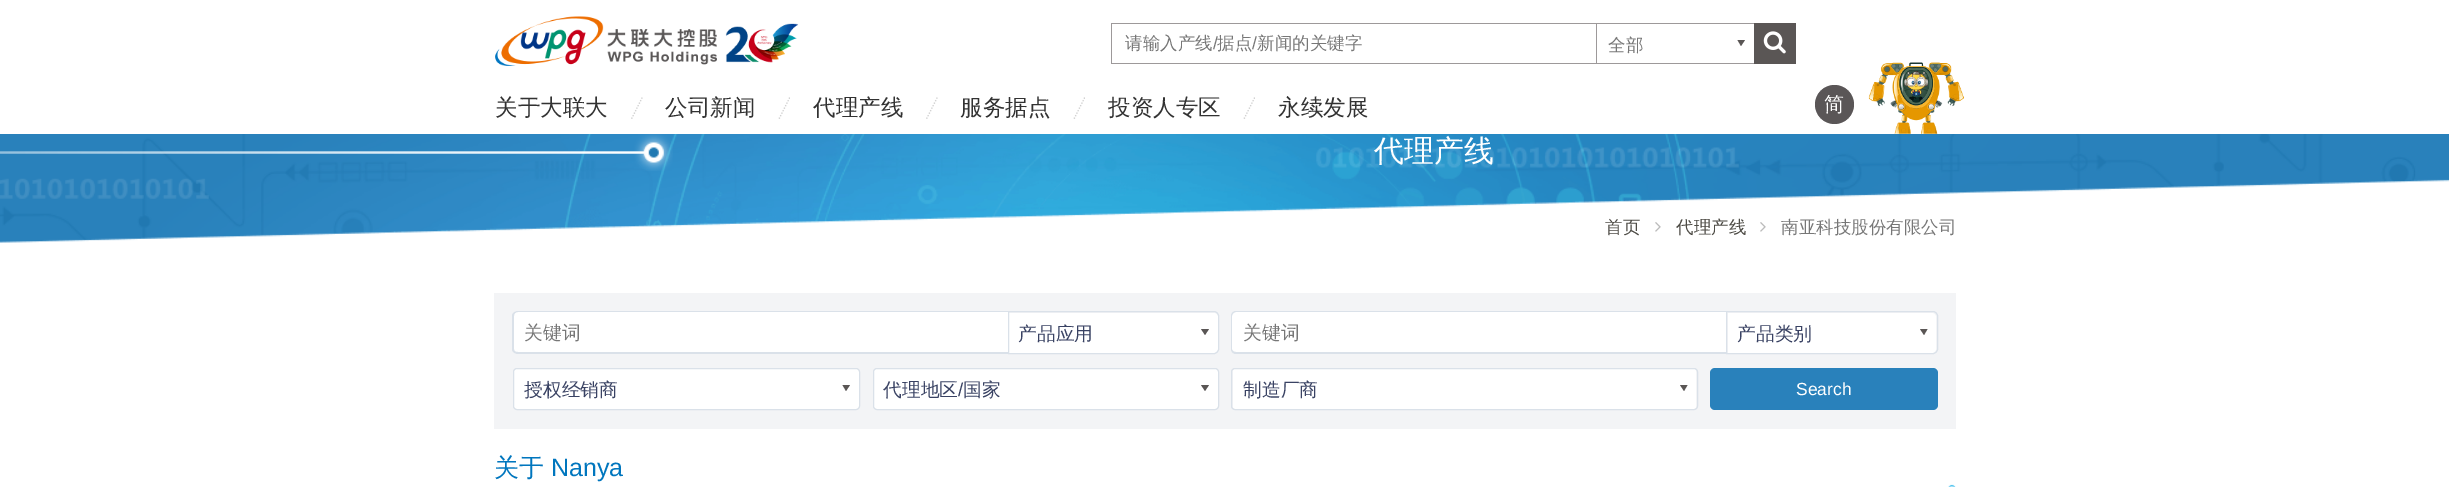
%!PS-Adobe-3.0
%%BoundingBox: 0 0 2449 487
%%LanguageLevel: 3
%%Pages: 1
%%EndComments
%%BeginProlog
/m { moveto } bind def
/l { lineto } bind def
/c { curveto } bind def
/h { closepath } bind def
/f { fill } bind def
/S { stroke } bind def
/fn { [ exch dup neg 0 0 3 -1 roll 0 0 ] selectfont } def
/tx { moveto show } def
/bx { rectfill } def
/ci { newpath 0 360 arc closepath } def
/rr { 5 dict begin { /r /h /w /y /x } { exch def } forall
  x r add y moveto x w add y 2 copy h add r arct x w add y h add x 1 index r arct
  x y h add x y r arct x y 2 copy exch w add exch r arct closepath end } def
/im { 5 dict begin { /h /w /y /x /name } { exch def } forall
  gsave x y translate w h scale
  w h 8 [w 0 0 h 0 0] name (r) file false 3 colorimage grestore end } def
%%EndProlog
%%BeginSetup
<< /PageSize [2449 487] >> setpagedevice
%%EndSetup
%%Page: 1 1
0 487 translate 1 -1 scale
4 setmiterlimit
1 setgray
0 0 2449 487 bx
(image0.raw) 495 16 304 50 im
0.616 0.6 0.604 setrgbcolor
1111 23 643 1 bx
1111 63 643 1 bx
1111 23 1 41 bx
/WenQuanYiZenHei-Medium 17.5 fn
0.467 setgray
(请输入产线) 1125 49 tx
/LiberationSans-Regular 17.5 fn
(/) 1213 49 tx
/WenQuanYiZenHei-Medium 17.5 fn
(据点) 1217 49 tx
/LiberationSans-Regular 17.5 fn
(/) 1252 49 tx
/WenQuanYiZenHei-Medium 17.5 fn
(新闻的关键字) 1257 49 tx
0.616 0.6 0.604 setrgbcolor
1596 23 1 41 bx
0.467 setgray
(全部) 1608 51 tx
0.353 0.337 0.333 setrgbcolor
1737.5 40 m 1745 40 l 1741 46 l h f
1754 23 42 41 bx
(image1.raw) 1763 31 23 23 im
/WenQuanYiZenHei-Medium 22.5 fn
0.196 setgray
(关于大联大) 495 115 tx
(image2.raw) 631 97 12 22 im
(公司新闻) 665 115 tx
(image3.raw) 778 97 12 22 im
(代理产线) 813 115 tx
(image2.raw) 926 97 12 22 im
(服务据点) 960 115 tx
(image3.raw) 1073 97 12 22 im
(投资人专区) 1108 115 tx
(image4.raw) 1243 97 12 22 im
(永续发展) 1278 115 tx
0.353 0.337 0.341 setrgbcolor
1834.5 104.5 19.5 ci f
/WenQuanYiZenHei-Medium 20 fn
1 setgray
(简) 1824 111 tx
(image5.raw) 1868 62 96 72 im
(image6.raw) 0 134 2449 109 im
(image7.raw) 0 134 673 37 im
/WenQuanYiZenHei-Medium 30 fn
(代理产线) 1374 161 tx
/WenQuanYiZenHei-Medium 17.5 fn
0.302 0.294 0.271 setrgbcolor
(首页) 1605 233 tx
(image8.raw) 1655 222 6 10 im
(代理产线) 1676 233 tx
(image8.raw) 1760 222 6 10 im
0.467 setgray
(南亚科技股份有限公司) 1781 233 tx
0.953 0.957 0.965 setrgbcolor
494 293 1462 136 bx
1 setgray
518 311 m 1008 311 l 1008 354 l 518 354 l 515 354 513 352 513 349 c 513 316 l 513 313 515 311 518 311 c h f
0.855 0.882 0.914 setrgbcolor
518 311 m 1008 311 l 1008 354 l 518 354 l 515 354 512 352 512 349 c 512 316 l 512 313 515 311 518 311 c h 518 312 m 1008 312 l 1008 352 l 518 352 l 515 352 514 351 514 349 c 514 316 l 514 314 515 312 518 312 c h eofill
/WenQuanYiZenHei-Medium 18.75 fn
0.467 setgray
(关键词) 524 339 tx
1 setgray
1009 313 m 1214 313 l 1216 313 1218 315 1218 317 c 1218 349 l 1218 351 1216 353 1214 353 c 1009 353 l h f
0.855 0.882 0.914 setrgbcolor
1008.5 311.5 m 1214 311.5 l 1216.5 311.5 1218.5 313.5 1218.5 316 c 1218.5 349 l 1218.5 351.5 1216.5 353.5 1214 353.5 c 1008.5 353.5 l h S
0.224 0.259 0.388 setrgbcolor
(产品应用) 1018 340 tx
0.353 0.337 0.333 setrgbcolor
1201 329 m 1209 329 l 1205 335 l h f
1 setgray
1236 311 m 1726 311 l 1726 354 l 1236 354 l 1233 354 1231 352 1231 349 c 1231 316 l 1231 313 1233 311 1236 311 c h f
0.855 0.882 0.914 setrgbcolor
1236 311 m 1726 311 l 1726 354 l 1236 354 l 1233 354 1231 352 1231 349 c 1231 316 l 1231 313 1233 311 1236 311 c h 1236 312 m 1726 312 l 1726 352 l 1236 352 l 1234 352 1232 351 1232 349 c 1232 316 l 1232 314 1234 312 1236 312 c h eofill
0.467 setgray
(关键词) 1243 339 tx
1 setgray
1728 313 m 1932 313 l 1934 313 1936 315 1936 317 c 1936 349 l 1936 351 1934 353 1932 353 c 1728 353 l h f
0.855 0.882 0.914 setrgbcolor
1726.5 311.5 m 1933 311.5 l 1935.5 311.5 1937.5 313.5 1937.5 316 c 1937.5 349 l 1937.5 351.5 1935.5 353.5 1933 353.5 c 1726.5 353.5 l h S
0.224 0.259 0.388 setrgbcolor
(产品类别) 1737 340 tx
0.353 0.337 0.333 setrgbcolor
1920 329 m 1927.5 329 l 1924 335 l h f
1 setgray
514 369 345 40 2.5 rr f
0.855 0.882 0.914 setrgbcolor
513.5 368.5 346 41 3.5 rr S
0.224 0.259 0.388 setrgbcolor
(授权经销商) 524 396 tx
0.353 0.337 0.333 setrgbcolor
842.5 385 m 850 385 l 846 391 l h f
1 setgray
874 369 344 40 2.5 rr f
0.855 0.882 0.914 setrgbcolor
873.5 368.5 345 41 3.5 rr S
0.224 0.259 0.388 setrgbcolor
(代理地区) 883 396 tx
/LiberationSans-Regular 18.75 fn
(/) 958 396 tx
/WenQuanYiZenHei-Medium 18.75 fn
(国家) 963 396 tx
0.353 0.337 0.333 setrgbcolor
1201 385 m 1209 385 l 1205 391 l h f
1 setgray
1233 369 463 40 2.5 rr f
0.855 0.882 0.914 setrgbcolor
1231.5 368.5 466 41 3.5 rr S
0.224 0.259 0.388 setrgbcolor
(制造厂商) 1243 396 tx
0.353 0.337 0.333 setrgbcolor
1680 385 m 1687.5 385 l 1684 391 l h f
0.161 0.506 0.733 setrgbcolor
1710 368 228 42 5 rr f
/LiberationSans-Regular 17.5 fn
1 setgray
(Search) 1796 395 tx
/WenQuanYiZenHei-Medium 25 fn
0 0.463 0.745 setrgbcolor
(关于) 494 476 tx
/LiberationSans-Regular 25 fn
(Nanya) 551 476 tx
(image9.raw) 1948 484 8 3 im
showpage
%%EOF
